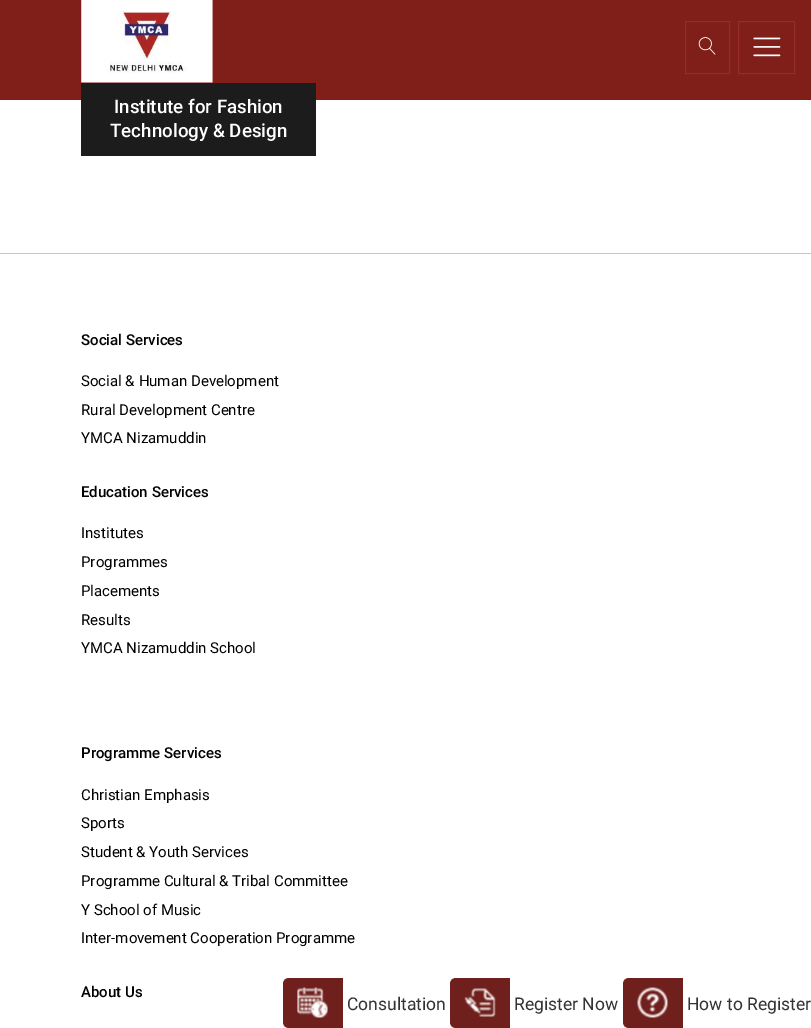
%!PS-Adobe-3.0
%%BoundingBox: 0 0 811 1028
%%LanguageLevel: 3
%%Pages: 1
%%EndComments
%%BeginProlog
/m { moveto } bind def
/l { lineto } bind def
/c { curveto } bind def
/h { closepath } bind def
/f { fill } bind def
/fn { [ exch dup neg 0 0 3 -1 roll 0 0 ] selectfont } def
/tx { moveto show } def
/bx { rectfill } def
/im { 5 dict begin { /h /w /y /x /name } { exch def } forall
  gsave x y translate w h scale
  w h 8 [w 0 0 h 0 0] name (r) file false 3 colorimage grestore end } def
%%EndProlog
%%BeginSetup
<< /PageSize [811 1028] >> setpagedevice
%%EndSetup
%%Page: 1 1
0 1028 translate 1 -1 scale
4 setmiterlimit
1 setgray
0 0 811 1028 bx
0.502 0.118 0.102 setrgbcolor
0 0 811 100 bx
0.588 0.173 0.157 setrgbcolor
685.5 21.5 44 52 rectstroke
(image0.raw) 698 37 18 18 im
738.5 21.5 56 52 rectstroke
(image1.raw) 753 37 28 20 im
(image2.raw) 81 0 132 83 im
0.11 setgray
81 83 235 73 bx
/Roboto-Medium 18.75 fn
1 setgray
(Institute for Fashion) 114 113 tx
(Technology & Design) 110 137 tx
0.439 0.125 0.11 setrgbcolor
289 978 m 343 978 l 343 1028 l 289 1028 l 285.5 1028 283 1025.5 283 1022 c 283 984 l 283 980.5 285.5 978 289 978 c h f
(image3.raw) 297 987 31 31 im
/Roboto-Regular 17.5 fn
0.2 setgray
(Consultation) 347 1010 tx
0.439 0.125 0.11 setrgbcolor
456 978 m 510 978 l 510 1028 l 456 1028 l 452.5 1028 450 1025.5 450 1022 c 450 984 l 450 980.5 452.5 978 456 978 c h f
(image4.raw) 464 988 32 29 im
0.2 setgray
(Register Now) 514 1010 tx
0.439 0.125 0.11 setrgbcolor
629 978 m 683 978 l 683 1028 l 629 1028 l 625.5 1028 623 1025.5 623 1022 c 623 984 l 623 980.5 625.5 978 629 978 c h f
(image5.raw) 637 987 31 31 im
0.2 setgray
(How to Register) 687 1010 tx
0.776 setgray
0 253 811 1 bx
/Roboto-Medium 15 fn
0 setgray
(Social Services) 81 345 tx
/Roboto-Regular 15 fn
(Social & Human Development) 81 386 tx
(Rural Development Centre) 81 415 tx
(YMCA Nizamuddin) 81 443 tx
/Roboto-Medium 15 fn
(Education Services) 81 497 tx
/Roboto-Regular 15 fn
(Institutes) 81 538 tx
(Programmes) 81 567 tx
(Placements) 81 596 tx
(Results) 81 625 tx
(YMCA Nizamuddin School) 81 653 tx
/Roboto-Medium 15 fn
(Programme Services) 81 758 tx
/Roboto-Regular 15 fn
(Christian Emphasis) 81 800 tx
(Sports) 81 828 tx
(Student & Youth Services) 81 857 tx
(Programme Cultural & Tribal Committee) 81 886 tx
(Y School of Music) 81 915 tx
(Inter-movement Cooperation Programme) 81 943 tx
/Roboto-Medium 15 fn
(About Us) 81 997 tx
showpage
%%EOF
